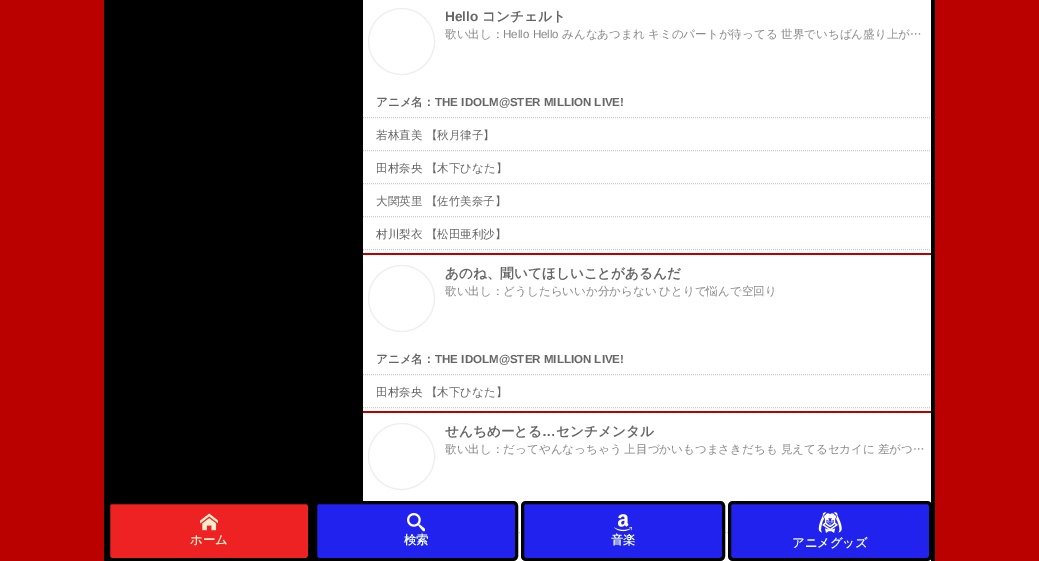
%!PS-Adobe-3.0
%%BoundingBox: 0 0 1039 561
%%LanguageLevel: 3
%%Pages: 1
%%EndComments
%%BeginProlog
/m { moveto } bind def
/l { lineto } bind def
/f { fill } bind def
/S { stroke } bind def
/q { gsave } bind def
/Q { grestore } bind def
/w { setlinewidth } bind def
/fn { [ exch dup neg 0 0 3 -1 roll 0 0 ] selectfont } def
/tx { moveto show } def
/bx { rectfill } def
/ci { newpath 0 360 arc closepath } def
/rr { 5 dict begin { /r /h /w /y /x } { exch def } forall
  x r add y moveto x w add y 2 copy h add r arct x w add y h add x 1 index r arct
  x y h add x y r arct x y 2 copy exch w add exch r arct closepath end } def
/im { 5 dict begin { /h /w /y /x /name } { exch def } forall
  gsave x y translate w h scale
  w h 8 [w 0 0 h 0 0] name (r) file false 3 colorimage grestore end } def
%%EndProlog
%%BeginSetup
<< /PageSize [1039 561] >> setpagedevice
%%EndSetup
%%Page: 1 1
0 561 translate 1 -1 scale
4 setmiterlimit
0.733 0 0 setrgbcolor
0 0 1039 561 bx
0 setgray
104 0 831 561 bx
1 setgray
363 0 568 561 bx
0.733 0 0 setrgbcolor
363 253 568 2 bx
0.933 setgray
401.5 41.5 33 ci S
/LiberationSans-Bold 13.6 fn
0.4 setgray
(Hello) 445 21 tx
/WenQuanYiZenHei-Bold 13.6 fn
(コンチェルト) 482 21 tx
/WenQuanYiZenHei-Medium 11.55 fn
0.533 setgray
(歌い出し：) 445 38 tx
/LiberationSans-Regular 11.55 fn
(Hello Hello) 503 38 tx
/WenQuanYiZenHei-Medium 11.55 fn
(みんなあつまれ) 562 38 tx
(キミのパートが待ってる) 648 38 tx
(世界でいちばん盛り上が…) 781 38 tx
0.8 setgray
[1 1] 0 setdash
363 117.5 m 931 117.5 l S
/WenQuanYiZenHei-Bold 11.55 fn
0.4 setgray
(アニメ名：) 376 106 tx
/LiberationSans-Bold 11.55 fn
(THE IDOLM@STER MILLION LIVE!) 435 106 tx
0.8 setgray
363 150.5 m 931 150.5 l S
/WenQuanYiZenHei-Medium 11.55 fn
0.4 setgray
(若林直美 【秋月律子】) 376 139 tx
0.8 setgray
363 183.5 m 931 183.5 l S
0.4 setgray
(田村奈央 【木下ひなた】) 376 172 tx
0.8 setgray
363 216.5 m 931 216.5 l S
0.4 setgray
(大関英里 【佐竹美奈子】) 376 205 tx
0.8 setgray
363 249.5 m 931 249.5 l S
0.4 setgray
(村川梨衣 【松田亜利沙】) 376 238 tx
0.733 0 0 setrgbcolor
363 411 568 2 bx
0.933 setgray
[] 0 setdash
401.5 298.5 33 ci S
/WenQuanYiZenHei-Bold 13.6 fn
0.4 setgray
(あのね、聞いてほしいことがあるんだ) 445 278 tx
/WenQuanYiZenHei-Medium 11.55 fn
0.533 setgray
445 295 m -1 0 32 (歌い出し：どうしたらいいか分からない ひとりで悩んで空回り) widthshow
0.8 setgray
[1 1] 0 setdash
363 374.5 m 931 374.5 l S
/WenQuanYiZenHei-Bold 11.55 fn
0.4 setgray
(アニメ名：) 376 363 tx
/LiberationSans-Bold 11.55 fn
(THE IDOLM@STER MILLION LIVE!) 435 363 tx
0.8 setgray
363 407.5 m 931 407.5 l S
/WenQuanYiZenHei-Medium 11.55 fn
0.4 setgray
(田村奈央 【木下ひなた】) 376 396 tx
0.933 setgray
[] 0 setdash
401.5 456.5 33 ci S
/WenQuanYiZenHei-Bold 13.6 fn
0.4 setgray
(せんちめーとる) 445 436 tx
/LiberationSans-Bold 13.6 fn
(…) 542 436 tx
/WenQuanYiZenHei-Bold 13.6 fn
(センチメンタル) 556 436 tx
/WenQuanYiZenHei-Medium 11.55 fn
0.533 setgray
445 453 m -0.5 0 32 (歌い出し：だってやんなっちゃう 上目づかいもつまさきだちも 見えてるセカイに 差がつ…) widthshow
0.8 setgray
[1 1] 0 setdash
363 532.5 m 931 532.5 l S
0.933 0.133 0.133 setrgbcolor
108.5 502.5 201 57 3.5 rr q f Q
0 setgray
3 w
[] 0 setdash
S
(image0.raw) 200 513 18 18 im
/WenQuanYiZenHei-Bold 12.25 fn
1 0.933 0.808 setrgbcolor
(ホーム) 190 544 tx
0.133 0.133 0.933 setrgbcolor
315.5 502.5 201 57 3.5 rr q f Q
0 setgray
S
(image1.raw) 407 513 18 19 im
0.937 1 0.937 setrgbcolor
(検索) 404 544 tx
0.133 0.133 0.933 setrgbcolor
522.5 502.5 201 57 3.5 rr q f Q
0 setgray
S
(image2.raw) 614 514 18 18 im
0.937 1 0.937 setrgbcolor
(音楽) 611 544 tx
0.133 0.133 0.933 setrgbcolor
729.5 502.5 201 57 3.5 rr q f Q
0 setgray
S
(image3.raw) 818 512 24 21 im
0.937 1 0.937 setrgbcolor
(アニメグッズ) 792 547 tx
showpage
%%EOF
